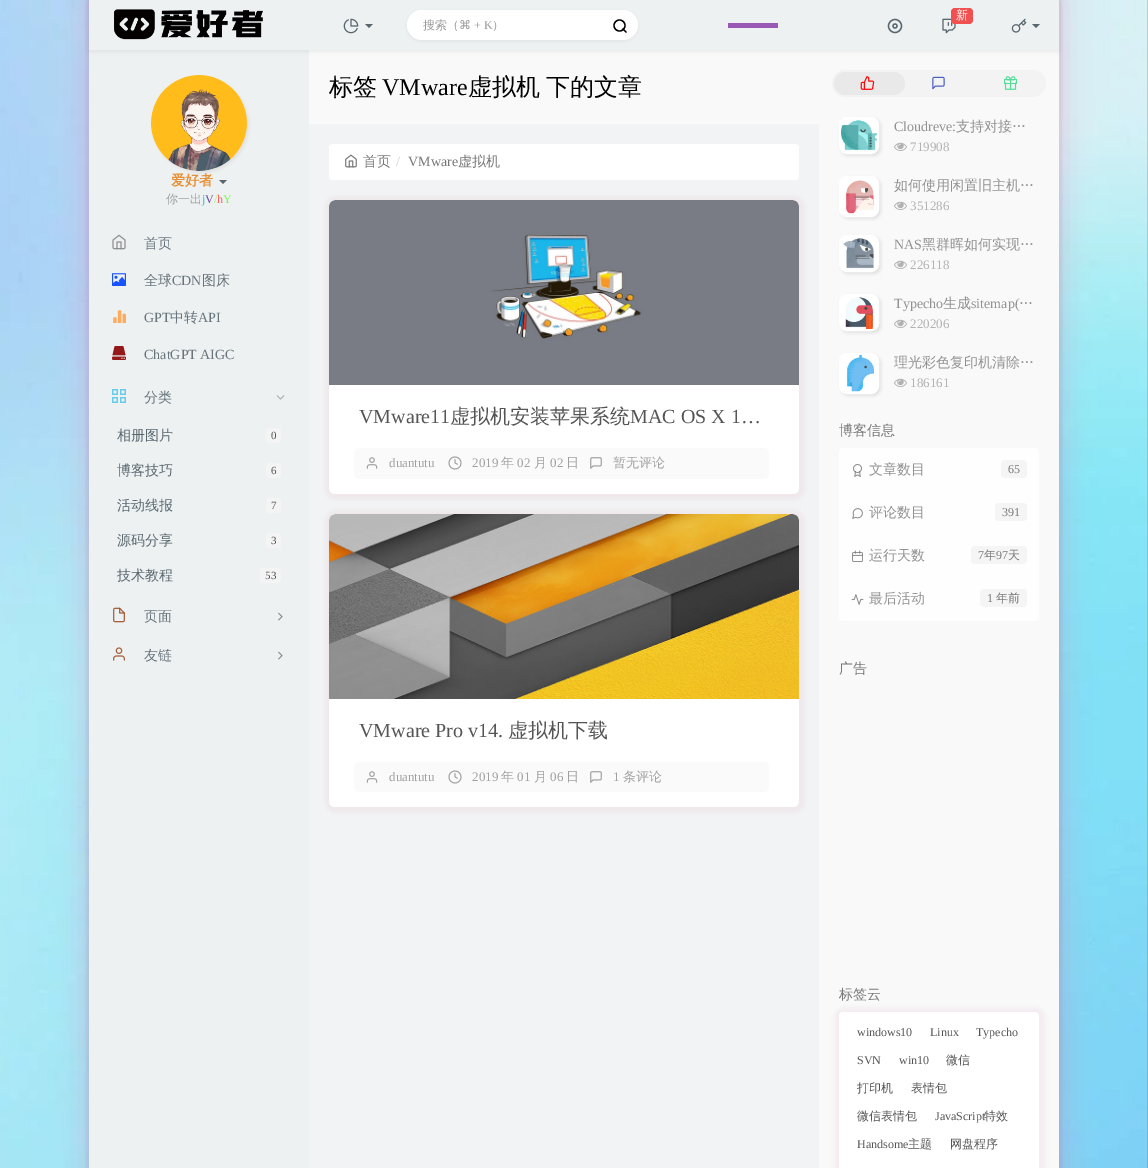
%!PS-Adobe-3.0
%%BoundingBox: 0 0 1148 1168
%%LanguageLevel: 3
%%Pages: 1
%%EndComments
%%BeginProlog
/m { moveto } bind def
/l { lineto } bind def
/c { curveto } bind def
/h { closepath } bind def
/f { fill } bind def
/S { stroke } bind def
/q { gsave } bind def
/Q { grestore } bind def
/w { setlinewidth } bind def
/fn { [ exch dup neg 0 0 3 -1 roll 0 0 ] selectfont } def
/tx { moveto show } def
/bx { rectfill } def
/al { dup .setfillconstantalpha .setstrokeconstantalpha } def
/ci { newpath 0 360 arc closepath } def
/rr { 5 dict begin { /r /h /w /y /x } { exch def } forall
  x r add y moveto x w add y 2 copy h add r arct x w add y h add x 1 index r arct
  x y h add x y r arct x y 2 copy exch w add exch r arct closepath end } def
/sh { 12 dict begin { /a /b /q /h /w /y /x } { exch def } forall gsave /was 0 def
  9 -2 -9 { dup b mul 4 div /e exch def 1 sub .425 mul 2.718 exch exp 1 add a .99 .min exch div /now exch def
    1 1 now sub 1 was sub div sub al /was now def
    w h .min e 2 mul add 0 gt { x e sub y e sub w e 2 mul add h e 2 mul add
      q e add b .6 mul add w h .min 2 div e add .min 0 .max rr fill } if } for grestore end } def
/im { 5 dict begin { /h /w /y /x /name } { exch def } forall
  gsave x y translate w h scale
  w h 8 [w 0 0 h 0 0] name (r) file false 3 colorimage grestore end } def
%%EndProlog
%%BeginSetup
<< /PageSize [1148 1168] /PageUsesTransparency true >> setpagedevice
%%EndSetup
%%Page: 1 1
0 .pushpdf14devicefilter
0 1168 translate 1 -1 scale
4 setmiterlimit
1 setgray
0 0 1148 1168 bx
(image0.raw) 0 0 1148 1168 im
0 setgray
86 -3 976 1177 0 2 0.05 sh
0.976 setgray
819 50 240 1118 bx
q
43 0 m 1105 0 l 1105 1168 l 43 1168 l h 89 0 m 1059 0 l 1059 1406 l 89 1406 l h eoclip newpath
1 0.439 0.678 setrgbcolor
89 0 970 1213 0 15 0.35 sh
Q
0.929 0.945 0.949 setrgbcolor
89 50 220 1118 bx
0.976 setgray
309 50 510 74 bx
0 setgray
88 0 972 52 0 2 0.05 sh
0.929 0.945 0.949 setrgbcolor
89 0 970 50 bx
(image1.raw) 114 9 149 31 im
(image2.raw) 942 18 14 16 im
0.941 0.314 0.314 setrgbcolor
951 8 22 16 4 rr f
/WenQuanYiZenHei-Medium 12 fn
1 setgray
(新) 956 19 tx
0.608 0.349 0.714 setrgbcolor
728 23 50 5 bx
0.345 0.4 0.431 setrgbcolor
1.3 w
895 26 6.5 ci S
895 26 2 ci S
(image3.raw) 1011 18 16 15 im
1032 24 m 1040 24 l 1036 28 l h f
(image4.raw) 343 18 16 16 im
365 24 m 373 24 l 369 28 l h f
0 setgray
407 11 231 30 15 1.5 0.05 sh
1 setgray
407 10 231 30 15 rr f
q
423 17 151 17 rectclip
0.6 setgray
(搜索（) 423 29 tx
Q
/DejaVuSans-Regular 12 fn
0.6 setgray
(⌘) 459 29 tx
/LiberationSerif-Regular 12 fn
(+ K) 474 29 tx
/WenQuanYiZenHei-Medium 12 fn
(）) 492 29 tx
0 setgray
619.5 25.5 5.5 ci S
1 setlinecap
1 setlinejoin
626 32 m 623 29 l S
0.882 setgray
153 77 96 96 48 1.5 1 sh
(image5.raw) 151 75 96 96 im
/WenQuanYiZenHei-Bold 14 fn
0.902 0.569 0.22 setrgbcolor
(爱好者) 171 185 tx
0.345 0.4 0.431 setrgbcolor
219 180 m 227 180 l 223 184 l h f
/WenQuanYiZenHei-Medium 12 fn
0.627 setgray
(你一出) 166 203 tx
/LiberationSerif-Regular 12 fn
0.102 0.78 0.761 setrgbcolor
(j) 202 203 tx
0.431 0.251 0.667 setrgbcolor
(V) 205 203 tx
0.686 0.941 0.357 setrgbcolor
(/) 214 203 tx
1 0.369 0.388 setrgbcolor
(h) 217 203 tx
0.498 0.965 0.345 setrgbcolor
(Y) 223 203 tx
(image6.raw) 112 234 14 16 im
/WenQuanYiZenHei-Medium 14 fn
0.404 0.455 0.482 setrgbcolor
(首页) 144 248 tx
(image7.raw) 112 273 14 13 im
(全球) 144 285 tx
/LiberationSerif-Regular 14 fn
(CDN) 172 285 tx
/WenQuanYiZenHei-Medium 14 fn
(图床) 202 285 tx
(image8.raw) 113 310 13 13 im
/LiberationSerif-Regular 14 fn
(GPT) 144 322 tx
/WenQuanYiZenHei-Medium 14 fn
(中转) 170 322 tx
/LiberationSerif-Regular 14 fn
(API) 198 322 tx
(image9.raw) 112 346 14 14 im
(ChatGPT AIGC) 144 359 tx
(image10.raw) 112 389 14 14 im
/WenQuanYiZenHei-Medium 14 fn
(分类) 144 402 tx
(image11.raw) 276 395 9 5 im
0.345 0.4 0.431 setrgbcolor
(相册图片) 117 440 tx
0.957 setgray
266 428 15 15 4 rr f
/LiberationSerif-Regular 11 fn
0.333 setgray
(0) 271 439 tx
/WenQuanYiZenHei-Medium 14 fn
0.345 0.4 0.431 setrgbcolor
(博客技巧) 117 475 tx
0.957 setgray
266 463 15 15 4 rr f
/LiberationSerif-Regular 11 fn
0.333 setgray
(6) 271 474 tx
/WenQuanYiZenHei-Medium 14 fn
0.345 0.4 0.431 setrgbcolor
(活动线报) 117 510 tx
0.957 setgray
266 498 15 15 4 rr f
/LiberationSerif-Regular 11 fn
0.333 setgray
(7) 271 509 tx
/WenQuanYiZenHei-Medium 14 fn
0.345 0.4 0.431 setrgbcolor
(源码分享) 117 545 tx
0.957 setgray
266 533 15 15 4 rr f
/LiberationSerif-Regular 11 fn
0.333 setgray
(3) 271 544 tx
/WenQuanYiZenHei-Medium 14 fn
0.345 0.4 0.431 setrgbcolor
(技术教程) 117 580 tx
0.957 setgray
260 568 21 15 4 rr f
/LiberationSerif-Regular 11 fn
0.333 setgray
(53) 265 579 tx
(image12.raw) 113 607 12 16 im
/WenQuanYiZenHei-Medium 14 fn
0.404 0.455 0.482 setrgbcolor
(页面) 144 621 tx
(image13.raw) 278 612 5 9 im
(image14.raw) 113 647 12 14 im
(友链) 144 660 tx
(image13.raw) 278 651 5 9 im
0.945 0.953 0.957 setrgbcolor
309 124 510 1044 bx
/WenQuanYiZenHei-Medium 24 fn
0 setgray
(标签) 329 95 tx
/LiberationSerif-Regular 24 fn
(VMware) 382 95 tx
/WenQuanYiZenHei-Medium 24 fn
468 95 m -1 0 32 (虚拟机 下的文章) widthshow
1 setgray
329 144 470 36 4 rr f
(image15.raw) 345 154 12 14 im
/WenQuanYiZenHei-Medium 14 fn
0.467 setgray
(首页) 363 166 tx
/LiberationSerif-Regular 14 fn
0.8 setgray
(/) 396 166 tx
0.467 setgray
(VMware) 408 166 tx
/WenQuanYiZenHei-Medium 14 fn
(虚拟机) 458 166 tx
0.91 0.831 0.863 setrgbcolor
325 196 480 304 11 2.5 0.35 sh
1 setgray
329 200 470 294 6 rr f
(image16.raw) 329 200 470 185 im
/LiberationSerif-Regular 20 fn
0.333 setgray
(VMware11) 359 423 tx
/WenQuanYiZenHei-Medium 20 fn
(虚拟机安装苹果系统) 450 423 tx
/LiberationSerif-Regular 20 fn
(MAC OS X 1…) 630 423 tx
0.98 setgray
354 448 415 31 5 rr f
(image17.raw) 366 457 12 12 im
/LiberationSerif-Regular 13 fn
0.627 setgray
(duantutu) 389 467 tx
(image18.raw) 448 456 14 14 im
(2019) 472 467 tx
/WenQuanYiZenHei-Medium 13 fn
(年) 501 467 tx
/LiberationSerif-Regular 13 fn
(02) 517 467 tx
/WenQuanYiZenHei-Medium 13 fn
(月) 534 467 tx
/LiberationSerif-Regular 13 fn
(02) 550 467 tx
/WenQuanYiZenHei-Medium 13 fn
(日) 566 467 tx
(image19.raw) 590 457 12 12 im
(暂无评论) 613 467 tx
0.91 0.831 0.863 setrgbcolor
325 510 480 303 11 2.5 0.35 sh
1 setgray
329 514 470 293 6 rr f
(image20.raw) 329 514 470 185 im
/LiberationSerif-Regular 20 fn
0.333 setgray
(VMware Pro v14.) 359 737 tx
/WenQuanYiZenHei-Medium 20 fn
(虚拟机下载) 508 737 tx
0.98 setgray
354 762 415 30 5 rr f
(image17.raw) 366 771 12 12 im
/LiberationSerif-Regular 13 fn
0.627 setgray
(duantutu) 389 781 tx
(image18.raw) 448 770 14 14 im
(2019) 472 781 tx
/WenQuanYiZenHei-Medium 13 fn
(年) 501 781 tx
/LiberationSerif-Regular 13 fn
(01) 517 781 tx
/WenQuanYiZenHei-Medium 13 fn
(月) 534 781 tx
/LiberationSerif-Regular 13 fn
(06) 550 781 tx
/WenQuanYiZenHei-Medium 13 fn
(日) 566 781 tx
(image19.raw) 590 771 12 12 im
/LiberationSerif-Regular 13 fn
(1) 613 781 tx
/WenQuanYiZenHei-Medium 13 fn
(条评论) 623 781 tx
0.953 setgray
832 70 214 27 13.5 rr f
0.914 setgray
834 72 71 23 11.5 rr f
(image21.raw) 860 76 15 14 im
(image22.raw) 932 76 13 14 im
(image23.raw) 1004 76 13 14 im
0.882 setgray
841 119 40 37 7 1.5 1 sh
1 setgray
2 w
0 setlinecap
0 setlinejoin
840 118 38 35 7 rr S
(image24.raw) 841 119 36 33 im
/LiberationSerif-Regular 14 fn
0.569 setgray
(Cloudreve:) 894 131 tx
/WenQuanYiZenHei-Medium 14 fn
(支持对接…) 956 131 tx
(image25.raw) 894 142 13 9 im
/LiberationSerif-Regular 13 fn
0.698 setgray
(719908) 910 151 tx
0.882 setgray
841 178 40 41 8 1.5 1 sh
1 setgray
840 177 38 39 7 rr S
(image26.raw) 841 178 36 37 im
/WenQuanYiZenHei-Medium 14 fn
0.569 setgray
(如何使用闲置旧主机…) 894 190 tx
(image25.raw) 894 201 13 9 im
/LiberationSerif-Regular 13 fn
0.698 setgray
(351286) 910 210 tx
0.882 setgray
841 237 40 37 7 1.5 1 sh
1 setgray
840 236 38 35 7 rr S
(image27.raw) 841 237 36 33 im
/LiberationSerif-Regular 14 fn
0.569 setgray
(NAS) 894 249 tx
/WenQuanYiZenHei-Medium 14 fn
(黑群晖如何实现…) 922 249 tx
(image25.raw) 894 260 13 9 im
/LiberationSerif-Regular 13 fn
0.698 setgray
(226118) 910 269 tx
0.882 setgray
841 296 40 37 7 1.5 1 sh
1 setgray
840 295 38 35 7 rr S
(image28.raw) 841 296 36 33 im
/LiberationSerif-Regular 14 fn
0.569 setgray
(Typecho) 894 308 tx
/WenQuanYiZenHei-Medium 14 fn
(生成) 943 308 tx
/LiberationSerif-Regular 14 fn
(sitemap\() 971 308 tx
/WenQuanYiZenHei-Medium 14 fn
(…) 1019 308 tx
(image25.raw) 894 319 13 9 im
/LiberationSerif-Regular 13 fn
0.698 setgray
(220206) 910 328 tx
0.882 setgray
841 355 40 41 8 1.5 1 sh
1 setgray
840 354 38 39 7 rr S
(image29.raw) 841 355 36 37 im
/WenQuanYiZenHei-Medium 14 fn
0.569 setgray
(理光彩色复印机清除…) 894 367 tx
(image25.raw) 894 378 13 9 im
/LiberationSerif-Regular 13 fn
0.698 setgray
(186161) 910 387 tx
/WenQuanYiZenHei-Medium 14 fn
0.467 setgray
(博客信息) 839 435 tx
0.996 setgray
843 448 m 1035 448 l 1037 448 1039 450 1039 452 c 1039 492 l 839 492 l 839 452 l 839 450 841 448 843 448 c h f
(image30.raw) 853 464 9 13 im
0.569 setgray
(文章数目) 869 474 tx
0.961 setgray
1001 460 26 18 4 rr f
/LiberationSerif-Regular 12 fn
0.467 setgray
(65) 1008 473 tx
0.8 al
1 setgray
839 492 200 43 bx
1 al
(image31.raw) 852 508 11 11 im
/WenQuanYiZenHei-Medium 14 fn
0.569 setgray
(评论数目) 869 517 tx
0.961 setgray
995 503 32 18 4 rr f
/LiberationSerif-Regular 12 fn
0.467 setgray
(391) 1002 516 tx
0.8 al
1 setgray
839 535 200 43 bx
1 al
(image32.raw) 852 550 11 12 im
/WenQuanYiZenHei-Medium 14 fn
0.569 setgray
(运行天数) 869 560 tx
0.961 setgray
971 546 56 18 4 rr f
/LiberationSerif-Regular 12 fn
0.467 setgray
(7) 978 559 tx
/WenQuanYiZenHei-Medium 12 fn
(年) 984 559 tx
/LiberationSerif-Regular 12 fn
(97) 996 559 tx
/WenQuanYiZenHei-Medium 12 fn
(天) 1008 559 tx
0.8 al
1 setgray
839 577 m 1039 577 l 1039 617 l 1039 619 1037 621 1035 621 c 843 621 l 841 621 839 619 839 617 c h f
1 al
(image33.raw) 851 594 13 11 im
/WenQuanYiZenHei-Medium 14 fn
0.569 setgray
(最后活动) 869 603 tx
0.961 setgray
980 589 47 18 4 rr f
/LiberationSerif-Regular 12 fn
0.467 setgray
(1) 987 602 tx
/WenQuanYiZenHei-Medium 12 fn
(年前) 996 602 tx
/WenQuanYiZenHei-Medium 14 fn
(广告) 839 673 tx
0.91 0.831 0.863 setrgbcolor
835 1008 210 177 9 2.5 0.35 sh
0.467 setgray
(标签云) 839 999 tx
1 setgray
839 1012 200 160 4 rr f
/LiberationSerif-Regular 12 fn
0.333 setgray
(windows10) 857 1036 tx
(Linux) 930 1036 tx
(Typecho) 976 1036 tx
(SVN) 857 1064 tx
(win10) 899 1064 tx
/WenQuanYiZenHei-Medium 12 fn
(微信) 946 1064 tx
(打印机) 857 1092 tx
(表情包) 911 1092 tx
(微信表情包) 857 1120 tx
/LiberationSerif-Regular 12 fn
(JavaScript) 935 1120 tx
/WenQuanYiZenHei-Medium 12 fn
(特效) 984 1120 tx
/LiberationSerif-Regular 12 fn
(Handsome) 857 1148 tx
/WenQuanYiZenHei-Medium 12 fn
(主题) 908 1148 tx
(网盘程序) 950 1148 tx
.poppdf14devicefilter showpage
%%EOF
